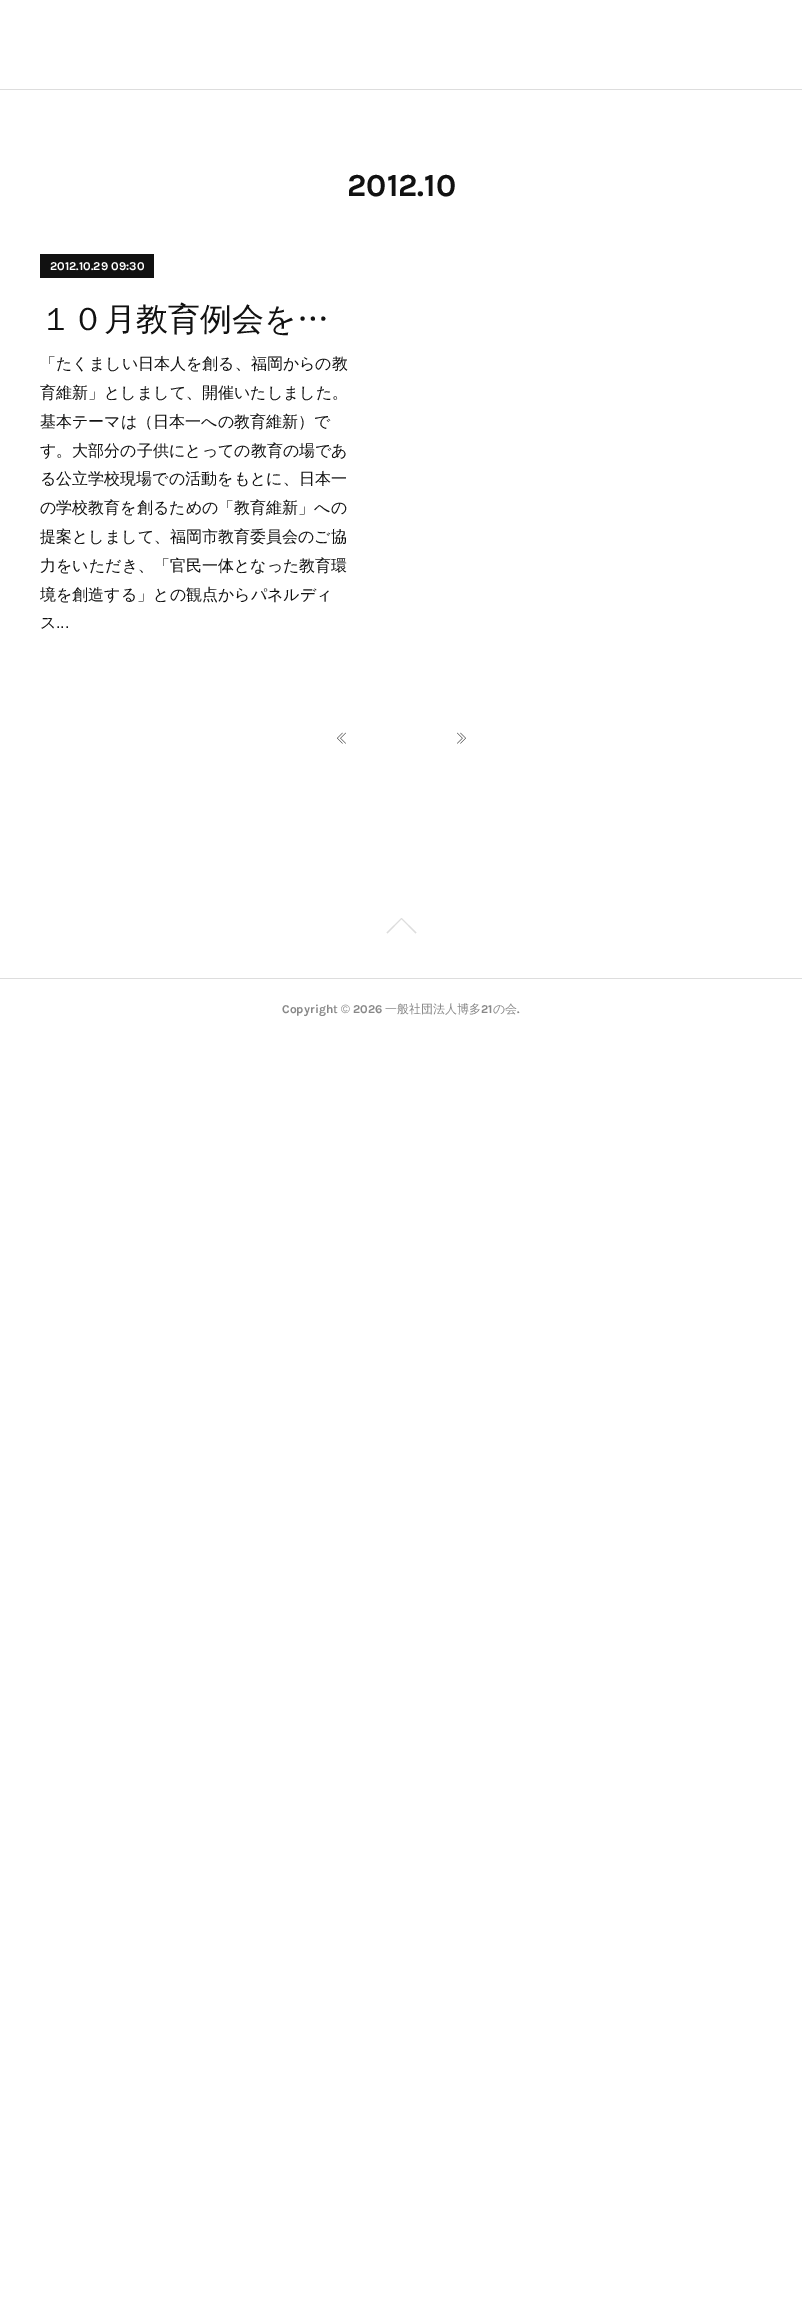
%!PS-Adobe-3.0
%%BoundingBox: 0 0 802 2318
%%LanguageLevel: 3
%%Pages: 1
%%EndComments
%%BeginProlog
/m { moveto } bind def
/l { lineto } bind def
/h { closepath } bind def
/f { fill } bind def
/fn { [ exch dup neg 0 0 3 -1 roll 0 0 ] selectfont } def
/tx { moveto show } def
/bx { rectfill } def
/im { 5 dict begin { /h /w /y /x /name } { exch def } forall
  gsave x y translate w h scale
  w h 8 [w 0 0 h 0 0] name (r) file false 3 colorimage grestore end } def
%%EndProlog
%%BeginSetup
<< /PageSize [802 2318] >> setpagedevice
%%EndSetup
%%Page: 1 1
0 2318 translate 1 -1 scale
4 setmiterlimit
1 setgray
0 0 802 2318 bx
0.867 setgray
0 89 802 1 bx
/Karla-Bold 32 fn
0.067 setgray
(2012.10) 347 196 tx
40 254 114 24 bx
/Karla-Bold 12 fn
1 setgray
(2012.10.29 09:30) 50 270 tx
/WenQuanYiZenHei-Medium 32 fn
0.067 setgray
(１０月教育例会を…) 40 330 tx
/WenQuanYiZenHei-Medium 16 fn
(「たくましい日本人を創る、福岡からの教) 40 369 tx
(育維新」としまして、開催いたしました。) 40 398 tx
(基本テーマは（日本一への教育維新）で) 40 427 tx
(す。大部分の子供にとっての教育の場であ) 40 456 tx
(る公立学校現場での活動をもとに、日本一) 40 484 tx
(の学校教育を創るための「教育維新」への) 40 513 tx
(提案としまして、福岡市教育委員会のご協) 40 542 tx
(力をいただき、「官民一体となった教育環) 40 571 tx
(境を創造する」との観点からパネルディ) 40 600 tx
(ス) 40 628 tx
/LiberationSans-Regular 16 fn
(...) 56 628 tx
(image0.raw) 337 732 9 12 im
(image1.raw) 457 732 9 12 im
0.867 setgray
386.5 932.5 m 401.5 918 l 402 918.5 l 387.5 933.5 l h f
401 918.5 m 401.5 918 l 416.5 932.5 l 415.5 933.5 l h f
0 978 802 1 bx
/Karla-Bold 12 fn
0.533 setgray
(Copyright) 282 1013 tx
/LiberationSans-Regular 12 fn
(©) 341 1013 tx
/Karla-Bold 12 fn
(2026) 353 1013 tx
/WenQuanYiZenHei-Medium 12 fn
(一般社団法人博多) 385 1013 tx
/Karla-Bold 12 fn
(21) 481 1013 tx
/WenQuanYiZenHei-Medium 12 fn
(の会) 493 1013 tx
/Karla-Bold 12 fn
(.) 517 1013 tx
showpage
%%EOF
